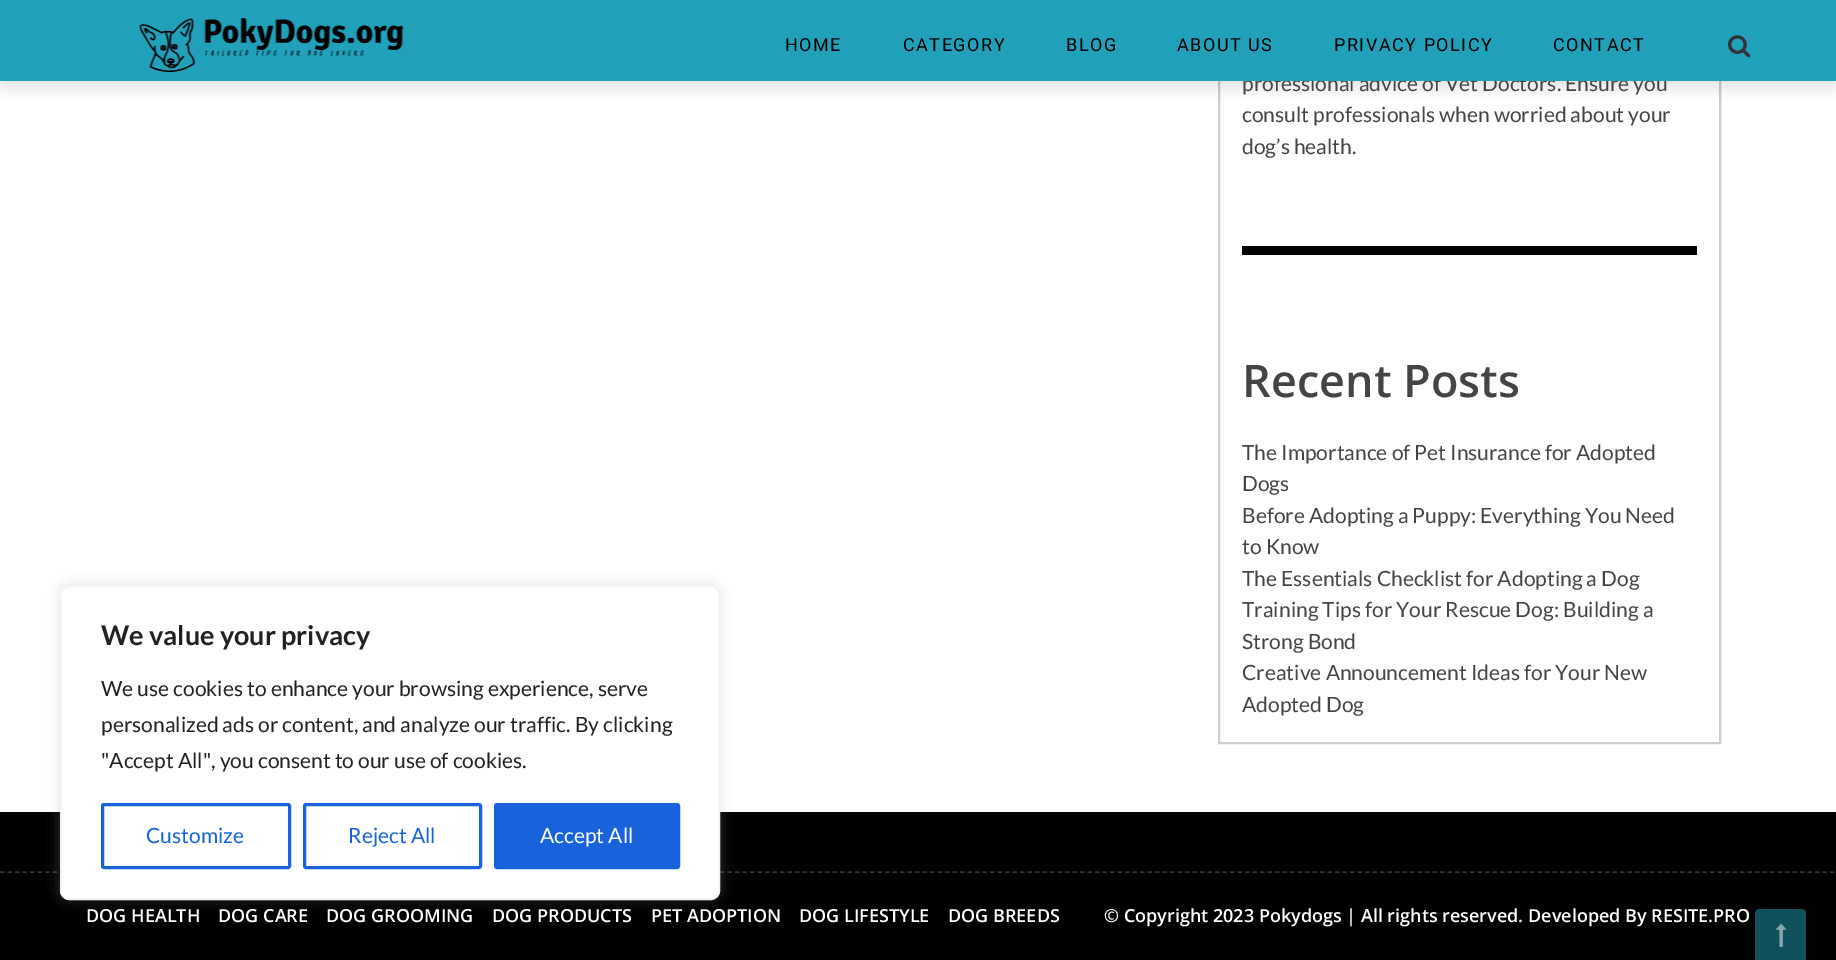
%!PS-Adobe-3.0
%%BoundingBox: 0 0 1836 960
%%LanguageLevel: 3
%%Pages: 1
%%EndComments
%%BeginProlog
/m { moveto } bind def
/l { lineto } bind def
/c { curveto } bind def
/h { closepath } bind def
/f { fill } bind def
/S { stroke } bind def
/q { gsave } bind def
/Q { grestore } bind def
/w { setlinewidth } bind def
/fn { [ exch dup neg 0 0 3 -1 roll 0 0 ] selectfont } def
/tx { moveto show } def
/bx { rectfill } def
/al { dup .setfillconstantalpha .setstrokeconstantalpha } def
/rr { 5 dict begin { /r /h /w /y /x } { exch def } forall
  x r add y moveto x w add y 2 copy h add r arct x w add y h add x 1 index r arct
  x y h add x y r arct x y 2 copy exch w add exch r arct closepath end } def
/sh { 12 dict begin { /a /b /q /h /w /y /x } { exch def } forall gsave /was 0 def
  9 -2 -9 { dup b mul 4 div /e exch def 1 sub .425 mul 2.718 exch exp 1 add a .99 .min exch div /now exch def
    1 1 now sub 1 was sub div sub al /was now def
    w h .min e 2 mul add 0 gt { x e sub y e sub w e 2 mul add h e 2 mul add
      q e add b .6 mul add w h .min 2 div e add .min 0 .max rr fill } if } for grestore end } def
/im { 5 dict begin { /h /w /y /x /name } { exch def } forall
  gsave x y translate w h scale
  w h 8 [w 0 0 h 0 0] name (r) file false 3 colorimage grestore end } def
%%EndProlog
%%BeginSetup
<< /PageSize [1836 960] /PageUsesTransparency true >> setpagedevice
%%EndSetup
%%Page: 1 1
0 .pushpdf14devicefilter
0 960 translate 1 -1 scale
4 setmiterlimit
1 setgray
0 0 1836 960 bx
0.8 setgray
2 w
1219 -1 501 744 rectstroke
0 setgray
0 8 1836 81 0 7.5 0.1 sh
/Lato-Regular 21 fn
0.267 setgray
(professional advice of Vet Doctors. Ensure you) 1242 91 tx
0.129 0.627 0.729 setrgbcolor
0 0 1836 81 bx
(image0.raw) 139 18 265 54 im
/Roboto-Regular 18 fn
0 setgray
785 51 m 1.5 0 (HOME) ashow
903 51 m 1.5 0 (CATEGORY) ashow
1066 51 m 1.5 0 (BLOG) ashow
1177 51 m 1.5 0 (ABOUT US) ashow
1334 51 m 1.5 0 (PRIVACY POLICY) ashow
1553 51 m 1.5 0 (CONTACT) ashow
(image1.raw) 1728 35 23 23 im
/Lato-Regular 21 fn
0.267 setgray
(consult professionals when worried about your) 1242 122 tx
(dog’s health.) 1242 154 tx
0 setgray
1242 246 455 9 bx
/OpenSans-SemiBold 45 fn
0.267 setgray
(Recent Posts) 1242 397 tx
/Lato-Regular 21 fn
(The Importance of Pet Insurance for Adopted) 1242 460 tx
(Dogs) 1242 491 tx
(Before Adopting a Puppy: Everything You Need) 1242 523 tx
(to Know) 1242 554 tx
(The Essentials Checklist for Adopting a Dog) 1242 586 tx
(Training Tips for Your Rescue Dog: Building a) 1242 617 tx
(Strong Bond) 1242 649 tx
(Creative Announcement Ideas for Your New) 1242 680 tx
(Adopted Dog) 1242 712 tx
0 setgray
0 812 1836 148 bx
0.2 setgray
1.5 w
[4.5 3] 0 setdash
0 872 m 1836 872 l S
/OpenSans-SemiBold 18 fn
1 setgray
(DOG HEALTH) 86 922 tx
(DOG CARE) 218 922 tx
(DOG GROOMING) 326 922 tx
(DOG PRODUCTS) 492 922 tx
(PET ADOPTION) 651 922 tx
(DOG LIFESTYLE) 799 922 tx
(DOG BREEDS) 948 922 tx
(© Copyright 2023 Pokydogs | All rights reserved. Developed By RESITE.PRO) 1104 922 tx
0.067 0.314 0.365 setrgbcolor
1760 909 m 1801 909 l 1804 909 1806 911 1806 914 c 1806 960 l 1755 960 l 1755 914 l 1755 911 1757 909 1760 909 c h f
(image2.raw) 1776 923 11 24 im
0.675 0.671 0.671 setrgbcolor
60 584 660 315 9 7.5 0.3 sh
1 setgray
61 586 658 313 8 rr q f Q
0.957 setgray
2 w
[] 0 setdash
S
/Lato-Bold 27 fn
0.129 setgray
(We value your privacy) 101 645 tx
/Lato-Regular 21 fn
(We use cookies to enhance your browsing experience, serve) 101 696 tx
(personalized ads or content, and analyze our traffic. By clicking) 101 732 tx
("Accept All", you consent to our use of cookies.) 101 768 tx
0.094 0.388 0.863 setrgbcolor
3 w
102.5 804.5 187 63 1.5 rr S
(Customize) 146 843 tx
304.5 804.5 176 63 1.5 rr S
(Reject All) 348 843 tx
495.5 804.5 183 63 1.5 rr q f Q
S
1 setgray
(Accept All) 540 843 tx
.poppdf14devicefilter showpage
%%EOF
